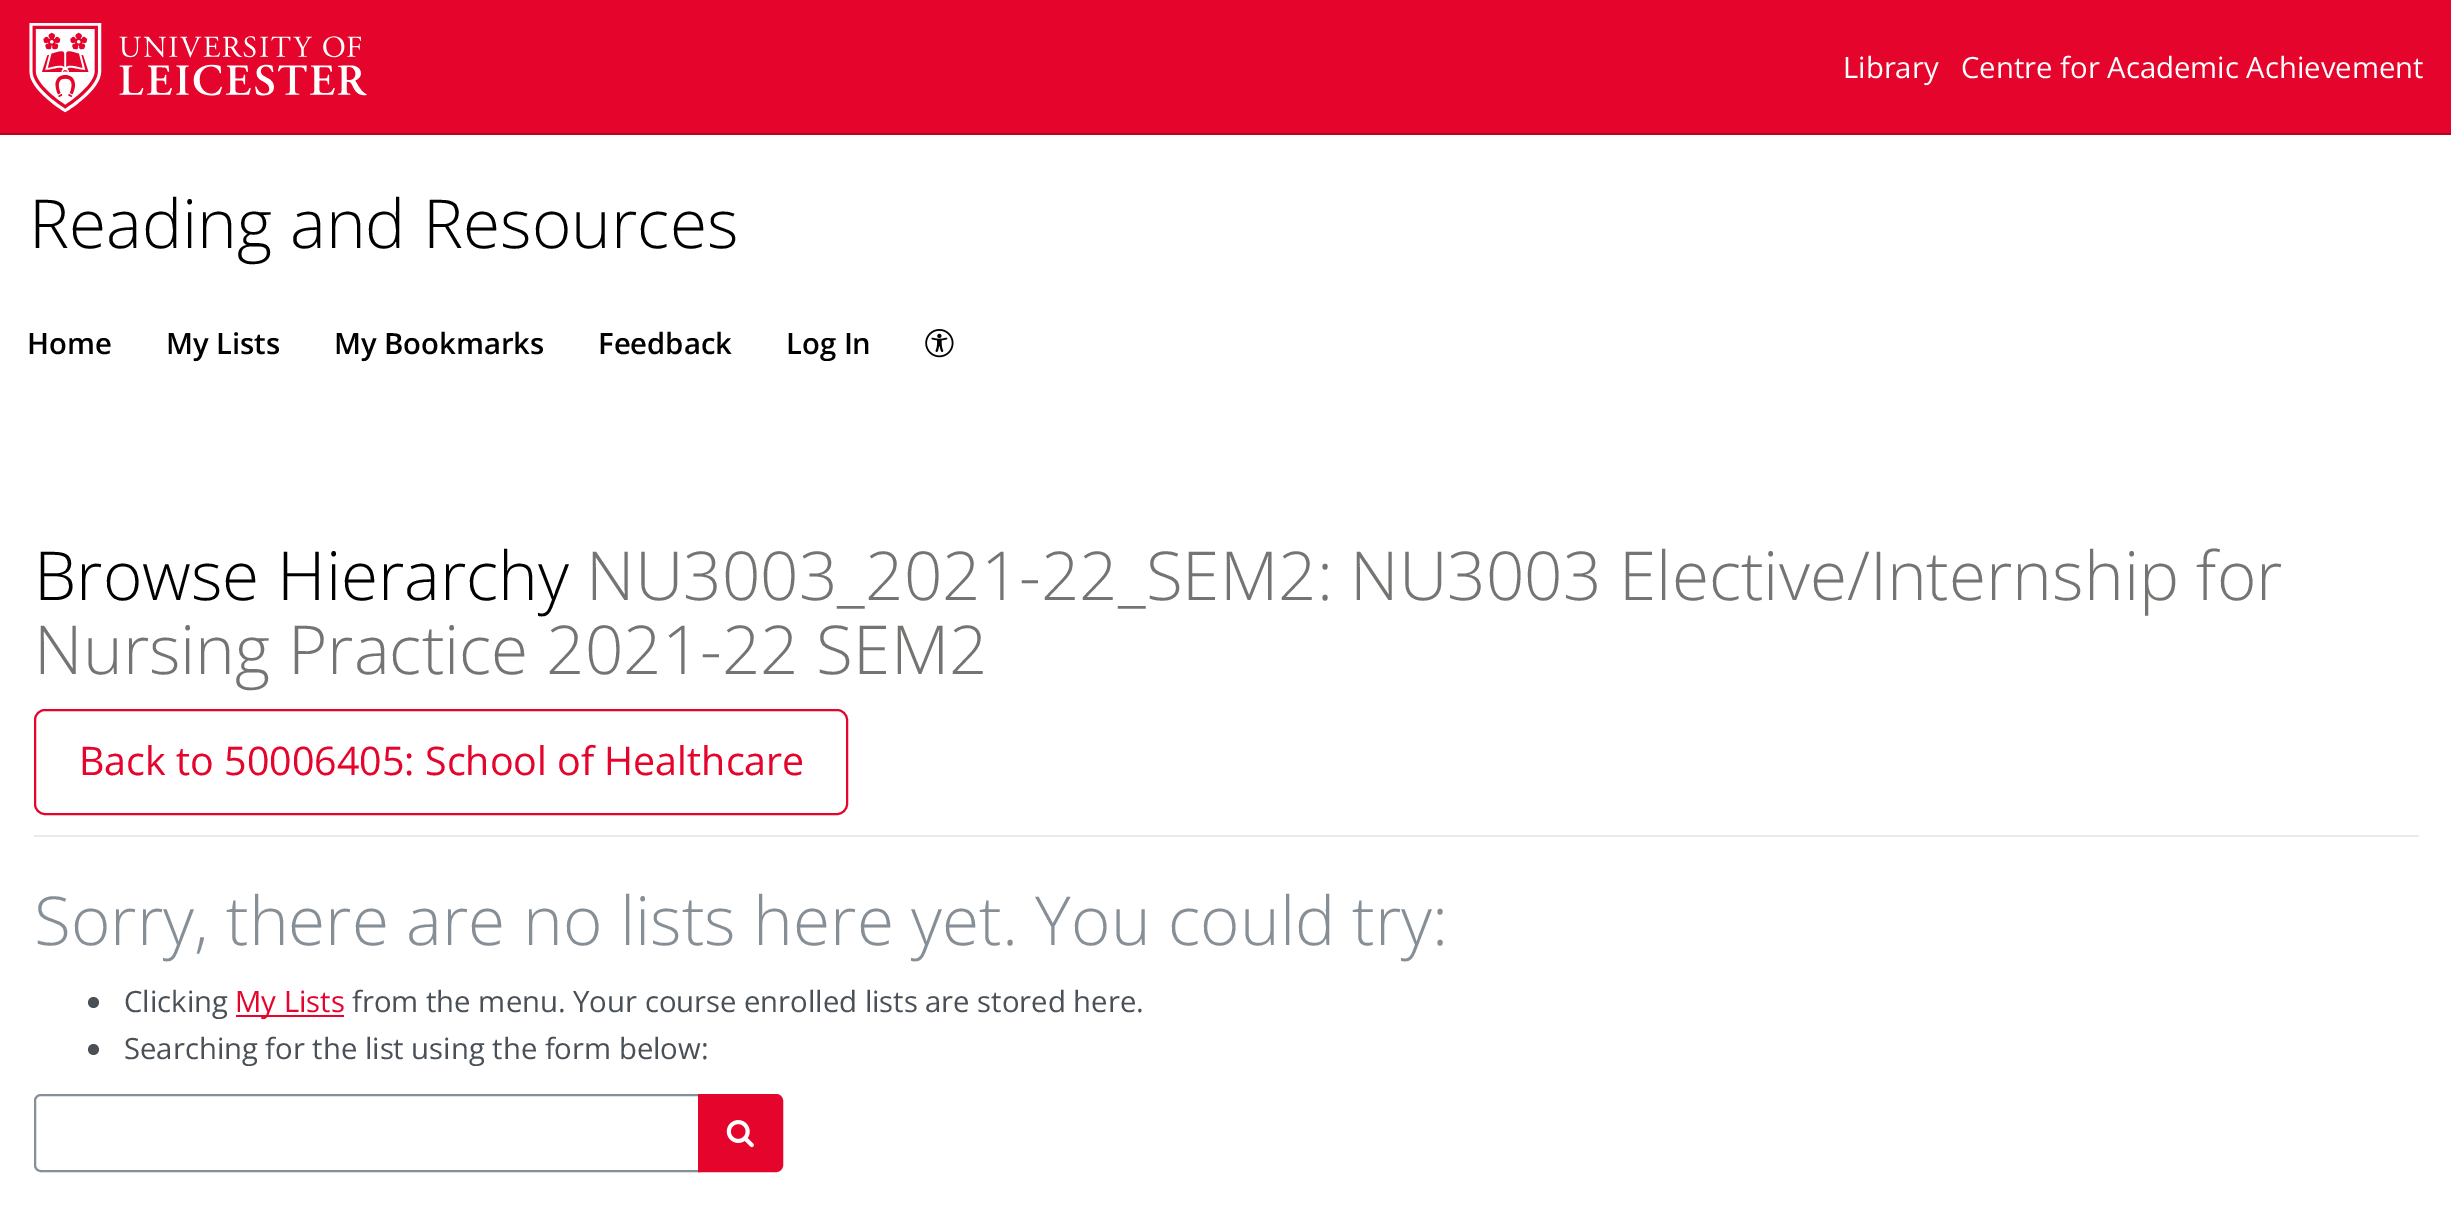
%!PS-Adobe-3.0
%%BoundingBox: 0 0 2451 1208
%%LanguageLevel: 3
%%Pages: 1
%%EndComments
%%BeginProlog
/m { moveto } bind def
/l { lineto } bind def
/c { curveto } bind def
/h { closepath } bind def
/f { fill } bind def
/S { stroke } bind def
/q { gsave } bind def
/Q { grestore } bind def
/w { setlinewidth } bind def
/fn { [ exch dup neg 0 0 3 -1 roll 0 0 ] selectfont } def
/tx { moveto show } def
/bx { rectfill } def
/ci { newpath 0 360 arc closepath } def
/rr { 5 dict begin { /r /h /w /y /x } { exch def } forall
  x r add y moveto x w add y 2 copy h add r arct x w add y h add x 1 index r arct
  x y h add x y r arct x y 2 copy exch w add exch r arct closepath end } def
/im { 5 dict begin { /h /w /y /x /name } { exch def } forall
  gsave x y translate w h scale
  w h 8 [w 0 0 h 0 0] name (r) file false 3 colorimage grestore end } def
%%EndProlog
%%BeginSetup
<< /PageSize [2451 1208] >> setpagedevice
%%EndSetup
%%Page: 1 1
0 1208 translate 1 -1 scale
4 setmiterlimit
1 setgray
0 0 2451 1208 bx
0.894 0.016 0.173 setrgbcolor
0 0 2451 133 bx
0.714 0.012 0.137 setrgbcolor
0 133 2451 2 bx
(image0.raw) 29 23 338 90 im
/OpenSans-Regular 29.25 fn
1 setgray
(Library) 1843 78 tx
(Centre for Academic Achievement) 1961 78 tx
/OpenSans-Light 67.5 fn
0 setgray
(Reading and Resources) 29 248 tx
/OpenSans-SemiBold 29.25 fn
(Home) 27 354 tx
(My Lists) 166 354 tx
(My Bookmarks) 334 354 tx
(Feedback) 598 354 tx
(Log In) 786 354 tx
(image1.raw) 925 329 29 29 im
0.914 0.925 0.937 setrgbcolor
34 835 2385 2 bx
/OpenSans-Light 67.5 fn
0 setgray
(Browse Hierarchy) 34 600 tx
0.455 0.455 0.447 setrgbcolor
(NU3003_2021-22_SEM2: NU3003 Elective/Internship for) 586 600 tx
(Nursing Practice 2021-22 SEM2) 34 674 tx
0.894 0.016 0.173 setrgbcolor
2 w
35 710 812 104 10 rr S
/OpenSans-Regular 39.4 fn
(Back to 50006405: School of Healthcare) 79 775 tx
/OpenSans-Light 67.5 fn
0.525 0.557 0.588 setrgbcolor
(Sorry, there are no lists here yet. You could try:) 34 945 tx
0.286 0.314 0.341 setrgbcolor
93.5 1002.5 5.5 ci f
/OpenSans-Regular 29.25 fn
(Clicking) 124 1012 tx
0.894 0.016 0.173 setrgbcolor
236 1015 108 2 bx
(My Lists) 235 1012 tx
0.286 0.314 0.341 setrgbcolor
(from the menu. Your course enrolled lists are stored here.) 352 1012 tx
93.5 1049.5 5.5 ci f
(Searching for the list using the form below:) 124 1059 tx
0.525 0.557 0.588 setrgbcolor
41 1095 m 699 1095 l 699 1171 l 41 1171 l 37.5 1171 35 1168.5 35 1165 c 35 1101 l 35 1097.5 37.5 1095 41 1095 c h S
0.894 0.016 0.173 setrgbcolor
699 1095 m 776 1095 l 779.5 1095 782 1097.5 782 1101 c 782 1165 l 782 1168.5 779.5 1171 776 1171 c 699 1171 l h q f Q
S
(image2.raw) 726 1120 28 28 im
showpage
%%EOF
